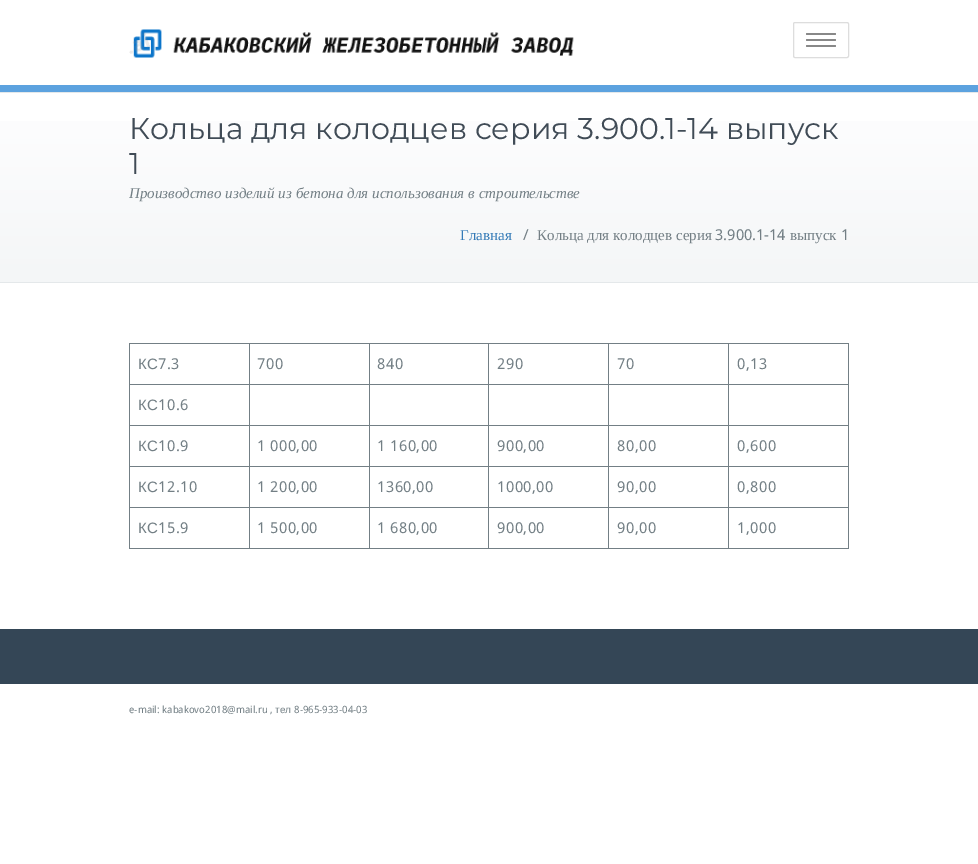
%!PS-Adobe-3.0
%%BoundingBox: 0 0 978 864
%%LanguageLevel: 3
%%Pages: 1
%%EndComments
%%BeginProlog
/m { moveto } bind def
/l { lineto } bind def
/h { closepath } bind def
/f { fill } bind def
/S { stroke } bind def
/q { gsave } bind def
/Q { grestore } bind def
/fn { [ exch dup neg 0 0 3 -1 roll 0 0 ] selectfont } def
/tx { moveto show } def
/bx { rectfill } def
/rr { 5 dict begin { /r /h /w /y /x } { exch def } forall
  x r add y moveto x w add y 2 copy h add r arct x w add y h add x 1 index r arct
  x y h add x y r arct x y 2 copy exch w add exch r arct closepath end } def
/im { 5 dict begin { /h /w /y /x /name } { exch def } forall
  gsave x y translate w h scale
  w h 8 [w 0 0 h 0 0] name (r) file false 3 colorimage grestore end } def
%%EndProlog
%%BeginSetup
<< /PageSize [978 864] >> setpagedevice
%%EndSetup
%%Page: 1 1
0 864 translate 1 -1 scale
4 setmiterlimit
1 setgray
0 0 978 864 bx
0.361 0.635 0.875 setrgbcolor
0 85 978 7 bx
(image0.raw) 129 29 445 29 im
0.867 setgray
793.5 22.5 55 35 1.5 rr S
0.533 setgray
806 33 30 2 1 rr f
806 39 30 2 1 rr f
806 45 30 2 1 rr f
q 0 121 m 978 121 l 978 282 l 0 282 l h clip newpath
<< /ShadingType 2 /ColorSpace /DeviceRGB /Coords [489 93 489 282] /Extend [true true] /Function << /FunctionType 2 /Domain [0 1] /C0 [0.996 0.996 1] /C1 [0.957 0.965 0.969] /N 1 >> >> shfill Q
0.894 0.91 0.918 setrgbcolor
0 92 978 1 bx
0 282 978 1 bx
/Montserrat-Regular 30 fn
0.251 0.294 0.337 setrgbcolor
(Кольца для колодцев серия 3.900.1-14 выпуск) 129 139 tx
(1) 129 174 tx
/LiberationSerif-Italic 15 fn
0.451 0.498 0.522 setrgbcolor
129 198 m 0.25 0 32 (Производство изделий из бетона для использования в строительстве) widthshow
/LiberationSerif-Regular 15 fn
0.2 0.478 0.718 setrgbcolor
(Главная) 460 240 tx
/DroidSans-Regular 15 fn
0.451 0.498 0.522 setrgbcolor
(/) 523 240 tx
/LiberationSerif-Regular 15 fn
(Кольца для колодцев серия) 537 240 tx
/DroidSans-Regular 15 fn
(3.900.1-14) 715 240 tx
/LiberationSerif-Regular 15 fn
(выпуск) 790 240 tx
/DroidSans-Regular 15 fn
(1) 841 240 tx
728 343 121 1 bx
728 384 121 1 bx
728 425 121 1 bx
728 466 121 1 bx
728 507 121 1 bx
848 507 1 42 bx
728 548 121 1 bx
728 507 1 42 bx
608 507 121 1 bx
728 466 1 42 bx
608 466 121 1 bx
728 425 1 42 bx
608 425 121 1 bx
728 384 1 42 bx
608 384 121 1 bx
728 343 1 42 bx
608 343 121 1 bx
608 548 121 1 bx
608 507 1 42 bx
488 507 121 1 bx
608 466 1 42 bx
488 466 121 1 bx
608 425 1 42 bx
488 425 121 1 bx
608 384 1 42 bx
488 384 121 1 bx
608 343 1 42 bx
488 343 121 1 bx
488 548 121 1 bx
488 507 1 42 bx
369 507 120 1 bx
488 466 1 42 bx
369 466 120 1 bx
488 425 1 42 bx
369 425 120 1 bx
488 384 1 42 bx
369 384 120 1 bx
488 343 1 42 bx
369 343 120 1 bx
369 548 120 1 bx
369 507 1 42 bx
249 507 121 1 bx
369 466 1 42 bx
249 466 121 1 bx
369 425 1 42 bx
249 425 121 1 bx
369 384 1 42 bx
249 384 121 1 bx
369 343 1 42 bx
249 343 121 1 bx
249 548 121 1 bx
249 507 1 42 bx
129 507 121 1 bx
249 466 1 42 bx
129 466 121 1 bx
249 425 1 42 bx
129 425 121 1 bx
249 384 1 42 bx
129 384 121 1 bx
249 343 1 42 bx
129 343 121 1 bx
129 548 121 1 bx
129 507 1 42 bx
129 466 1 42 bx
129 425 1 42 bx
129 384 1 42 bx
129 343 1 42 bx
/LiberationSans-Regular 15 fn
138 369 m 0.5 0 (КС) ashow
/DroidSans-Regular 15 fn
158 369 m 0.5 0 (7.3) ashow
257 369 m 0.5 0 (700) ashow
377 369 m 0.5 0 (840) ashow
497 369 m 0.5 0 (290) ashow
617 369 m 0.5 0 (70) ashow
848 466 1 42 bx
848 425 1 42 bx
848 384 1 42 bx
848 343 1 42 bx
737 369 m 0.5 0 (0,13) ashow
/LiberationSans-Regular 15 fn
138 410 m 0.5 0 (КС) ashow
/DroidSans-Regular 15 fn
158 410 m 0.5 0 (10.6) ashow
/LiberationSans-Regular 15 fn
138 451 m 0.5 0 (КС) ashow
/DroidSans-Regular 15 fn
158 451 m 0.5 0 (10.9) ashow
257 451 m 0.5 0 (1 000,00) ashow
377 451 m 0.5 0 (1 160,00) ashow
497 451 m 0.5 0 (900,00) ashow
617 451 m 0.5 0 (80,00) ashow
737 451 m 0.5 0 (0,600) ashow
/LiberationSans-Regular 15 fn
138 492 m 0.5 0 (КС) ashow
/DroidSans-Regular 15 fn
158 492 m 0.5 0 (12.10) ashow
257 492 m 0.5 0 (1 200,00) ashow
377 492 m 0.5 0 (1360,00) ashow
497 492 m 0.5 0 (1000,00) ashow
617 492 m 0.5 0 (90,00) ashow
737 492 m 0.5 0 (0,800) ashow
/LiberationSans-Regular 15 fn
138 533 m 0.5 0 (КС) ashow
/DroidSans-Regular 15 fn
158 533 m 0.5 0 (15.9) ashow
257 533 m 0.5 0 (1 500,00) ashow
377 533 m 0.5 0 (1 680,00) ashow
497 533 m 0.5 0 (900,00) ashow
617 533 m 0.5 0 (90,00) ashow
737 533 m 0.5 0 (1,000) ashow
0.204 0.275 0.337 setrgbcolor
0 629 978 55 bx
/DroidSans-Regular 10 fn
0.451 0.498 0.522 setrgbcolor
(e-mail: kabakovo2018@mail.ru ,) 129 713 tx
/LiberationSans-Regular 10 fn
(тел) 275 713 tx
/DroidSans-Regular 10 fn
(8-965-933-04-03) 294 713 tx
showpage
%%EOF
